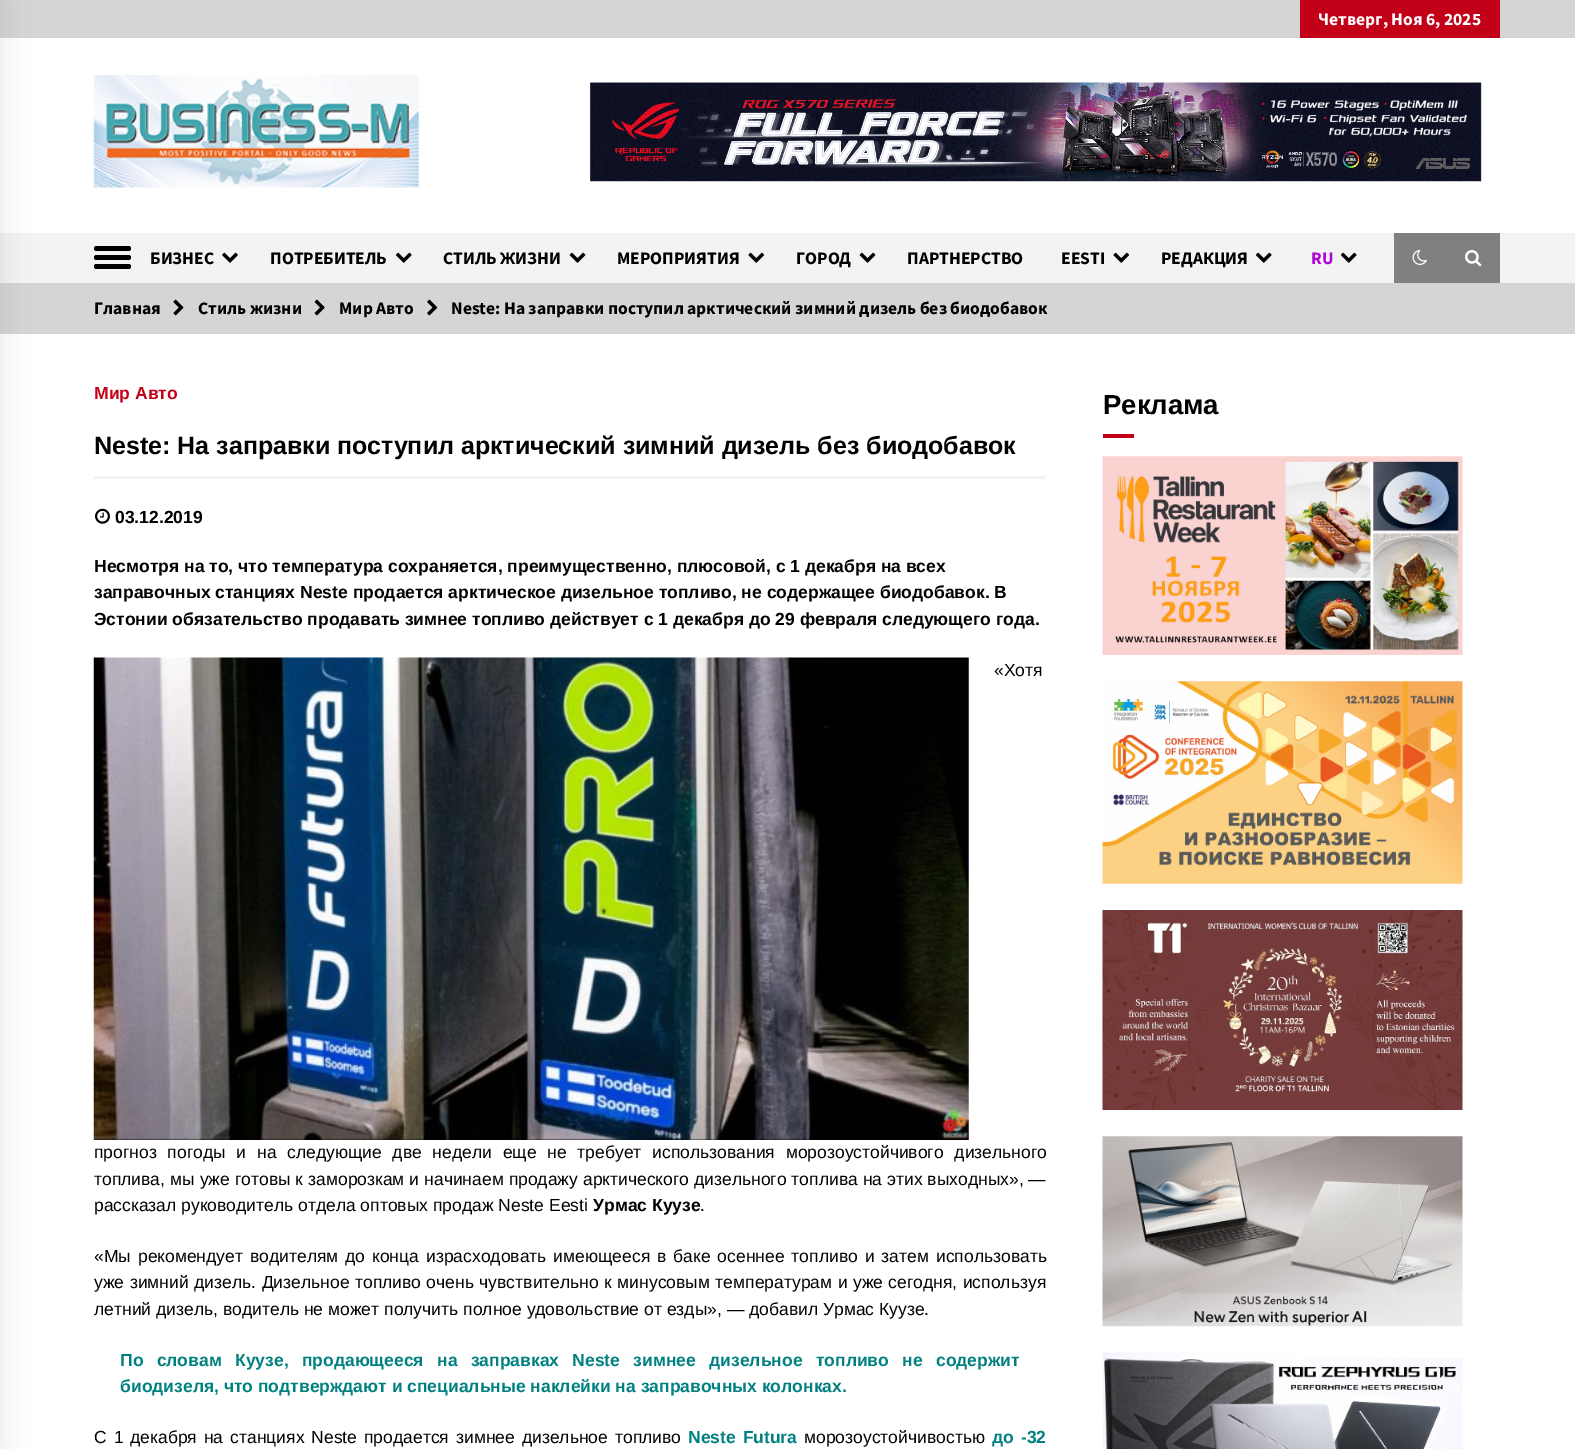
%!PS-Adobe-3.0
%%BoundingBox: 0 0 1575 1449
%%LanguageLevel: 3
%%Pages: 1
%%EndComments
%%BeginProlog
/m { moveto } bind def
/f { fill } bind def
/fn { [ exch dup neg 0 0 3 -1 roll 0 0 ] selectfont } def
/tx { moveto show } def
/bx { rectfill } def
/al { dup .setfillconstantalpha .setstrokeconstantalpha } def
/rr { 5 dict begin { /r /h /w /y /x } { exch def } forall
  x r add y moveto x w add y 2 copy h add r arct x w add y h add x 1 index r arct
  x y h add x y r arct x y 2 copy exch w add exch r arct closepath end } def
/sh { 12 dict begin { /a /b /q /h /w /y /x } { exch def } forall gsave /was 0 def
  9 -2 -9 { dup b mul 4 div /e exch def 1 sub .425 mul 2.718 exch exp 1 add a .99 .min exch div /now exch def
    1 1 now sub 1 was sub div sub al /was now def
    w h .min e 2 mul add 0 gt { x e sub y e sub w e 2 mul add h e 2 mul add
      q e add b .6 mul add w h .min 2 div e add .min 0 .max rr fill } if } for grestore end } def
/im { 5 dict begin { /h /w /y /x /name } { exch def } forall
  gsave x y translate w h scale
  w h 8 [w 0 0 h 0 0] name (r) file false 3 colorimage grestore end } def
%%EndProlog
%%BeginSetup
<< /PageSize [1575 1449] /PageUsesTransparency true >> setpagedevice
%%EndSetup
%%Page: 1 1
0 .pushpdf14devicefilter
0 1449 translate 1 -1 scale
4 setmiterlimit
1 setgray
0 0 1575 1449 bx
0.835 setgray
0 0 1575 38 bx
0.953 setgray
0 233 1575 50 bx
0.835 setgray
0 283 1575 51 bx
0 setgray
-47 0 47 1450 0 15.5 0.1 sh
0.761 0 0.09 setrgbcolor
1300 0 200 38 bx
/SourceSansPro-Bold 17.5 fn
1 setgray
(Четверг, Ноя 6, 2025) 1318 25 tx
(image0.raw) 93 75 326 113 im
(image1.raw) 590 82 892 100 im
0 setgray
94 246 37 5 2.5 rr f
94 264 37 5 2.5 rr f
94 255 37 5 2.5 rr f
(БИЗНЕС) 150 264 tx
(image2.raw) 222 252 16 11 im
(ПОТРЕБИТЕЛЬ) 270 264 tx
(image3.raw) 395 252 17 11 im
(СТИЛЬ ЖИЗНИ) 443 264 tx
(image4.raw) 569 252 17 11 im
(МЕРОПРИЯТИЯ) 617 264 tx
(image5.raw) 748 252 17 11 im
(ГОРОД) 796 264 tx
(image4.raw) 859 252 17 11 im
(ПАРТНЕРСТВО) 907 264 tx
(EESTI) 1061 264 tx
(image5.raw) 1113 252 17 11 im
(РЕДАКЦИЯ) 1161 264 tx
(image3.raw) 1255 252 17 11 im
0.698 0.012 0.847 setrgbcolor
(RU) 1311 264 tx
(image3.raw) 1340 252 17 11 im
0.502 setgray
1394 233 106 50 bx
(image6.raw) 1412 250 15 15 im
(image7.raw) 1465 250 17 17 im
0 setgray
(Главная) 94 314 tx
(image8.raw) 173 299 11 17 im
(Стиль жизни) 198 314 tx
(image9.raw) 314 299 11 17 im
(Мир Авто) 339 314 tx
(image10.raw) 427 299 11 17 im
(Neste: На заправки поступил арктический зимний дизель без биодобавок) 451 314 tx
/LiberationSans-Bold 17.5 fn
0.761 0 0.09 setrgbcolor
(Мир Авто) 94 399 tx
0.953 setgray
94 476 952 3 bx
/LiberationSans-Bold 25 fn
0 setgray
(Neste: На заправки поступил арктический зимний дизель без биодобавок) 94 454 tx
(image11.raw) 95 508 15 16 im
/LiberationSans-Bold 17.5 fn
(03.12.2019) 115 523 tx
(Несмотря на то, что температура сохраняется, преимущественно, плюсовой, с 1 декабря на всех) 94 572 tx
(заправочных станциях Neste продается арктическое дизельное топливо, не содержащее биодобавок. В) 94 598 tx
(Эстонии обязательство продавать зимнее топливо действует с 1 декабря до 29 февраля следующего года.) 94 625 tx
(image12.raw) 93 657 876 483 im
/LiberationSans-Regular 17.5 fn
(«Хотя) 994 676 tx
94 1158 m 5.9 0 32 (прогноз погоды и на следующие две недели еще не требует использования морозоустойчивого дизельного) widthshow
94 1185 m 0.1 0 32 (топлива, мы уже готовы к заморозкам и начинаем продажу арктического дизельного топлива на этих выходных», —) widthshow
(рассказал руководитель отдела оптовых продаж Neste Eesti) 94 1211 tx
/LiberationSans-Bold 17.5 fn
(Урмас Куузе) 593 1211 tx
/LiberationSans-Regular 17.5 fn
(.) 700 1211 tx
94 1262 m 2.1 0 32 («Мы рекомендует водителям до конца израсходовать имеющееся в баке осеннее топливо и затем использовать) widthshow
94 1288 m 0.6 0 32 (уже зимний дизель. Дизельное топливо очень чувствительно к минусовым температурам и уже сегодня, используя) widthshow
(летний дизель, водитель не может получить полное удовольствие от езды», — добавил Урмас Куузе.) 94 1315 tx
/LiberationSans-Bold 17.5 fn
0 0.502 0.502 setrgbcolor
120 1366 m 8.5 0 32 (По словам Куузе, продающееся на заправках Neste зимнее дизельное топливо не содержит) widthshow
(биодизеля, что подтверждают и специальные наклейки на заправочных колонках.) 120 1392 tx
/LiberationSans-Regular 17.5 fn
0 setgray
94 1443 m 2.1 0 32 (С 1 декабря на станциях Neste продается зимнее дизельное топливо) widthshow
/LiberationSans-Bold 17.5 fn
0 0.502 0.502 setrgbcolor
688 1443 m 2.1 0 32 (Neste Futura) widthshow
/LiberationSans-Regular 17.5 fn
0 setgray
(морозоустойчивостью) 804 1443 tx
/LiberationSans-Bold 17.5 fn
0 0.502 0.502 setrgbcolor
992 1443 m 2.1 0 32 (до -32) widthshow
/LiberationSans-Bold 27.5 fn
0 setgray
(Реклама) 1103 414 tx
0.761 0 0.09 setrgbcolor
1103 434 31 4 bx
(image13.raw) 1102 456 361 199 im
(image14.raw) 1102 681 361 203 im
(image15.raw) 1102 910 361 200 im
(image16.raw) 1102 1136 361 191 im
(image17.raw) 1102 1352 361 97 im
.poppdf14devicefilter showpage
%%EOF
